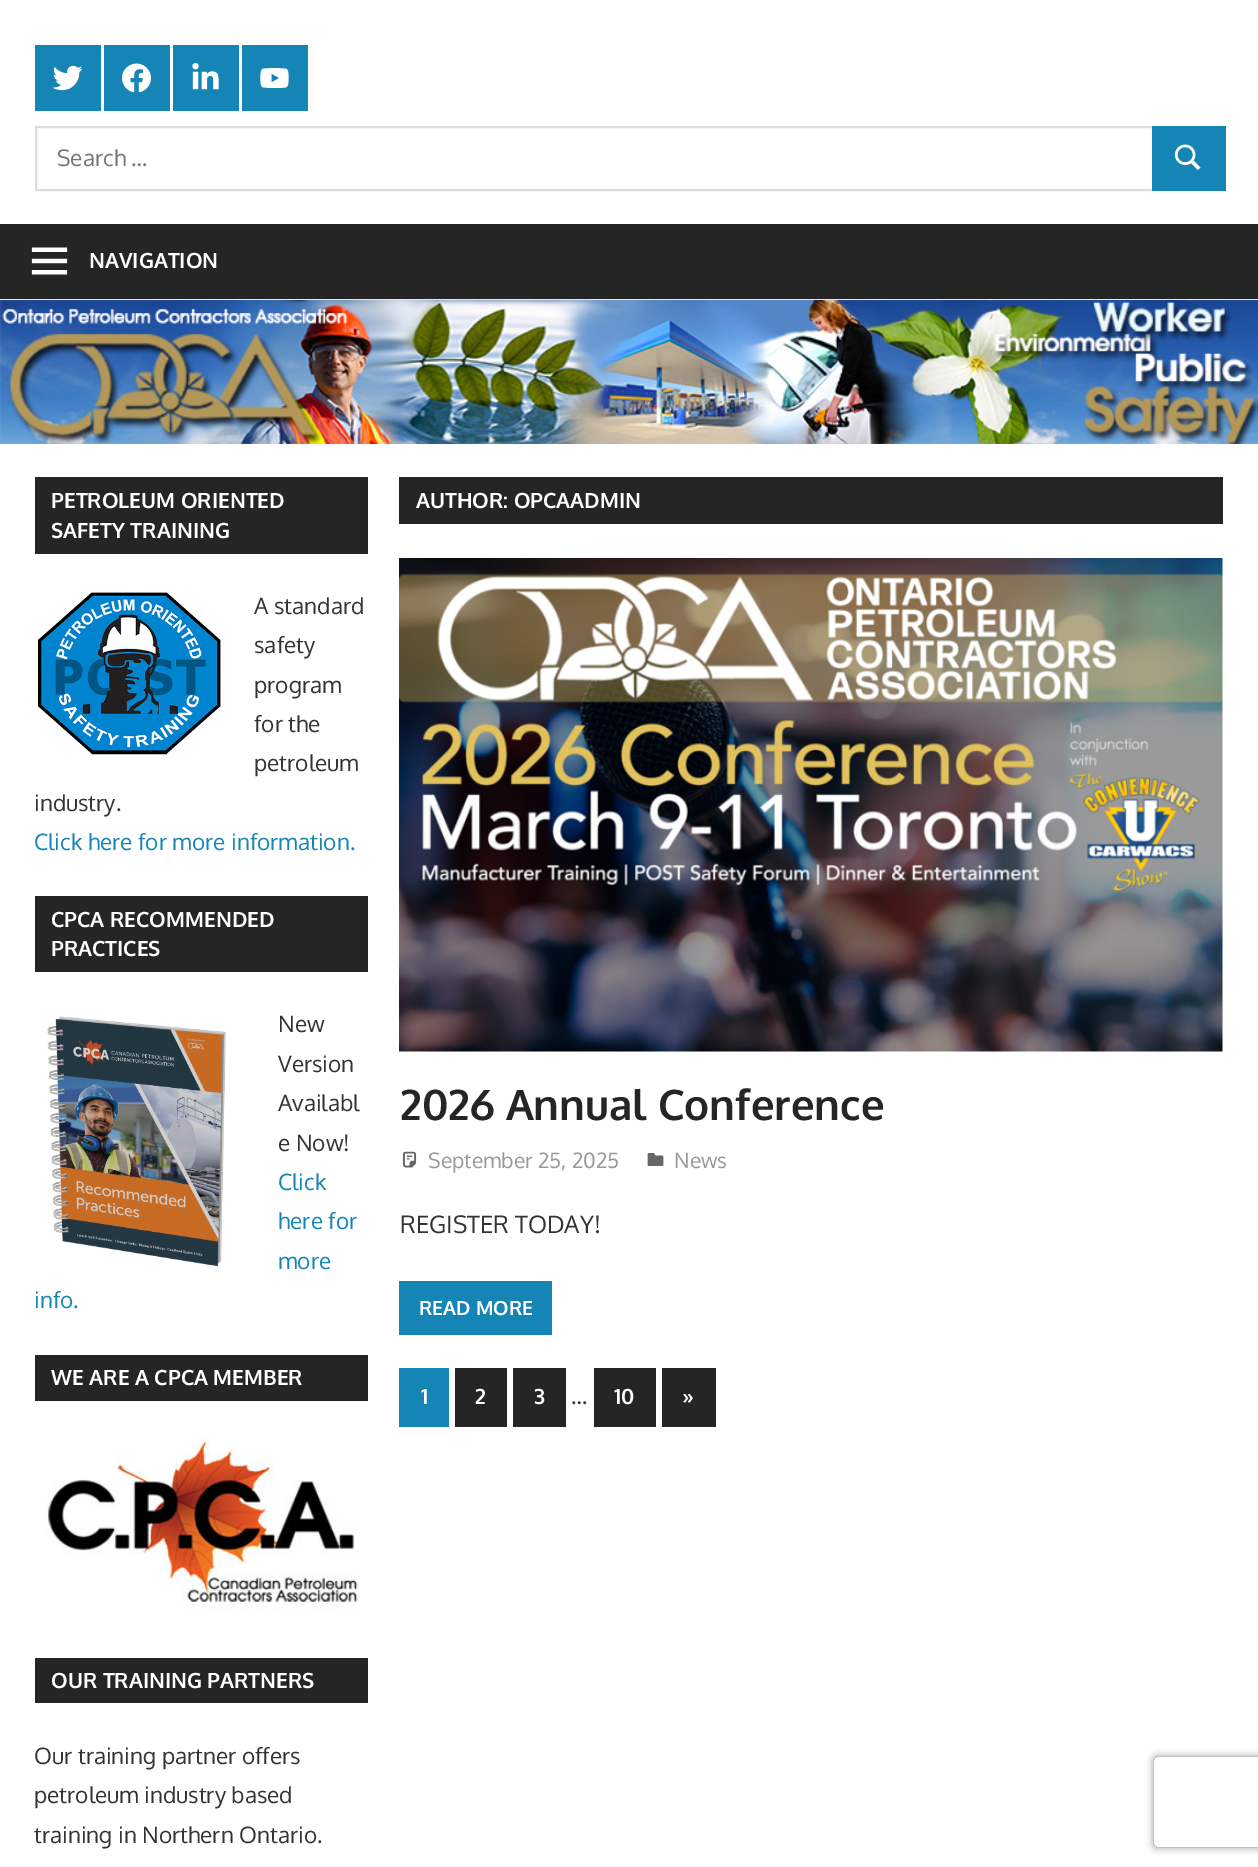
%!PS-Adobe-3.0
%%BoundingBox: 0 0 1258 1867
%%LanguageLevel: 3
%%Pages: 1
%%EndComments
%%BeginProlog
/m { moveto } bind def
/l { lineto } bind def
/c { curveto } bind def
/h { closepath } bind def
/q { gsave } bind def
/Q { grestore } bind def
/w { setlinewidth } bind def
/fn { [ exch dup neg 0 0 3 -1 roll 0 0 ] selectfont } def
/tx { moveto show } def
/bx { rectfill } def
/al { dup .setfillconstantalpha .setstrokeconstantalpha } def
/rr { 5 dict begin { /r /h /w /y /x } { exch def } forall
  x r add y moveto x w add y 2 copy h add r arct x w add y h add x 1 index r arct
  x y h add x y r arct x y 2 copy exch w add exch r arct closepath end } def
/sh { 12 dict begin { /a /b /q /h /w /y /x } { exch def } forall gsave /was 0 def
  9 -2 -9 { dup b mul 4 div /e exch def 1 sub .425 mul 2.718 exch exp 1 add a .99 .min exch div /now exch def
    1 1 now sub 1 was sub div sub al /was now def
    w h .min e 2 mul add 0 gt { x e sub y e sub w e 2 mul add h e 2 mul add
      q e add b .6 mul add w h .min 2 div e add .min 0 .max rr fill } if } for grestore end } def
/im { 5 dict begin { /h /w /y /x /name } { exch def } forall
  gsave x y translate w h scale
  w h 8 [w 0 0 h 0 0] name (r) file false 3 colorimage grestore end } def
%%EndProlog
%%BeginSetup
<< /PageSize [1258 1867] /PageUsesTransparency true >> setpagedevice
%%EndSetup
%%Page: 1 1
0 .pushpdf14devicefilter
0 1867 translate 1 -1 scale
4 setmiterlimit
0.898 setgray
0 0 1258 1867 bx
1 setgray
0 0 1258 224 bx
0.082 0.522 0.71 setrgbcolor
35 45 66 66 bx
(image0.raw) 53 65 29 26 im
104 45 66 66 bx
(image1.raw) 122 63 29 30 im
173 45 66 66 bx
(image2.raw) 192 63 27 27 im
242 45 66 66 bx
(image3.raw) 260 68 29 20 im
0.867 setgray
2 w
36 127 1117 63 rectstroke
/Oxygen-Regular 22.5 fn
0.459 setgray
(Search …) 57 166 tx
0.082 0.522 0.71 setrgbcolor
1152 126 74 65 bx
(image4.raw) 1174 144 27 26 im
0.145 setgray
0 224 1258 75 bx
(image5.raw) 31 247 37 28 im
/Oxygen-Bold 21 fn
1 setgray
(NAVIGATION) 89 268 tx
(image6.raw) 0 300 1258 144 im
0 444 1258 1423 bx
0.145 setgray
35 477 333 77 bx
1 setgray
(PETROLEUM ORIENTED) 51 508 tx
(SAFETY TRAINING) 51 538 tx
(image7.raw) 38 592 183 163 im
/Oxygen-Regular 22.5 fn
0.2 setgray
(A standard) 254 614 tx
(safety) 254 653 tx
(program) 254 693 tx
(for the) 254 732 tx
(petroleum) 254 771 tx
(industry.) 34 811 tx
0.082 0.522 0.71 setrgbcolor
(Click here for more information.) 34 850 tx
0.145 setgray
35 896 333 76 bx
/Oxygen-Bold 21 fn
1 setgray
(CPCA RECOMMENDED) 51 927 tx
(PRACTICES) 51 956 tx
(image8.raw) 47 1016 179 251 im
/Oxygen-Regular 22.5 fn
0.2 setgray
(New) 278 1032 tx
(Version) 278 1072 tx
(Availabl) 278 1111 tx
(e Now!) 278 1151 tx
0.082 0.522 0.71 setrgbcolor
(Click) 278 1190 tx
(here for) 278 1229 tx
(more) 278 1269 tx
(info.) 34 1308 tx
0.145 setgray
35 1355 333 46 bx
/Oxygen-Bold 21 fn
1 setgray
(WE ARE A CPCA MEMBER) 51 1385 tx
(image9.raw) 45 1434 314 176 im
0.145 setgray
35 1658 333 45 bx
1 setgray
(OUR TRAINING PARTNERS) 51 1688 tx
/Oxygen-Regular 22.5 fn
0.2 setgray
(Our training partner offers) 34 1764 tx
(petroleum industry based) 34 1803 tx
(training in Northern Ontario.) 34 1843 tx
0.145 setgray
399 477 824 47 bx
/Oxygen-Bold 21 fn
1 setgray
(AUTHOR: OPCAADMIN) 416 508 tx
(image10.raw) 399 558 824 494 im
/Oxygen-Bold 42 fn
0.145 setgray
(2026 Annual Conference) 400 1120 tx
(image11.raw) 402 1151 15 17 im
/Oxygen-Regular 21 fn
0.6 setgray
(September 25, 2025) 428 1168 tx
(image12.raw) 647 1153 17 13 im
(News) 674 1168 tx
/Oxygen-Regular 24 fn
0.2 setgray
(REGISTER TODAY!) 400 1233 tx
0.082 0.522 0.71 setrgbcolor
399 1281 153 54 bx
/Oxygen-Bold 19.5 fn
1 setgray
(READ MORE) 419 1315 tx
0.082 0.522 0.71 setrgbcolor
399 1368 50 59 bx
/Oxygen-Bold 21 fn
1 setgray
(1) 421 1404 tx
0.145 setgray
455 1368 52 59 bx
1 setgray
(2) 475 1404 tx
0.145 setgray
513 1368 53 59 bx
1 setgray
(3) 534 1404 tx
/Oxygen-Regular 22.5 fn
0.2 setgray
(…) 571 1404 tx
0.145 setgray
594 1368 62 59 bx
/Oxygen-Bold 21 fn
1 setgray
(10) 614 1404 tx
0.145 setgray
662 1368 54 59 bx
1 setgray
(») 682 1404 tx
q
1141 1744 m 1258 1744 l 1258 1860 l 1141 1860 l h 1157 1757 m 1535 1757 l 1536.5 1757 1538 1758.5 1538 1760 c 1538 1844 l 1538 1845.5 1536.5 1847 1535 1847 c 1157 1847 l 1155.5 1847 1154 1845.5 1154 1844 c 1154 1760 l 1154 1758.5 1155.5 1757 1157 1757 c h eoclip newpath
0.502 setgray
1154 1757 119 90 3 4 1 sh
Q
.poppdf14devicefilter showpage
%%EOF
